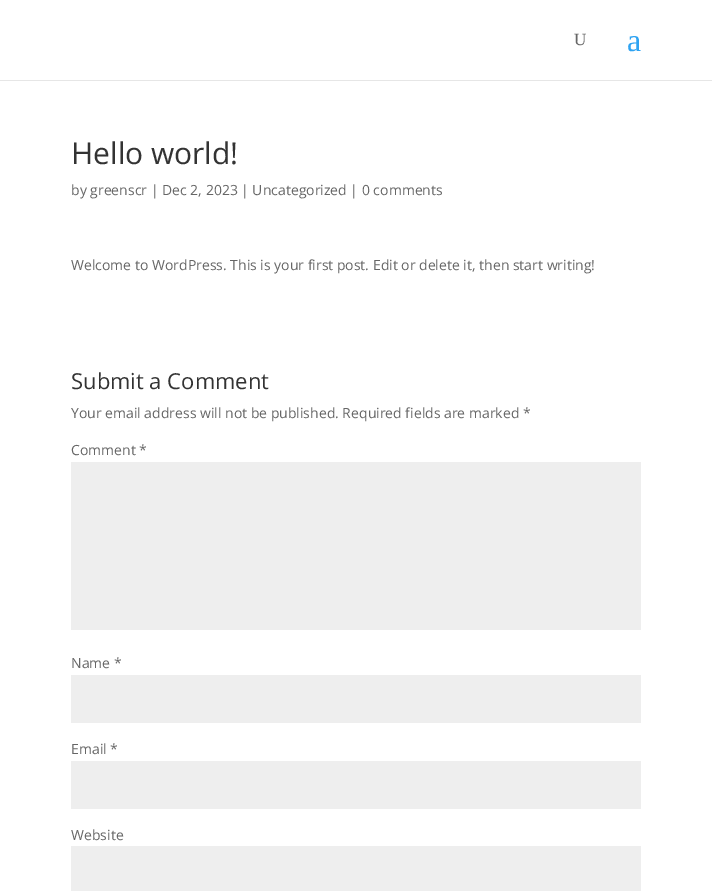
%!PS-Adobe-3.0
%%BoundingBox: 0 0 712 891
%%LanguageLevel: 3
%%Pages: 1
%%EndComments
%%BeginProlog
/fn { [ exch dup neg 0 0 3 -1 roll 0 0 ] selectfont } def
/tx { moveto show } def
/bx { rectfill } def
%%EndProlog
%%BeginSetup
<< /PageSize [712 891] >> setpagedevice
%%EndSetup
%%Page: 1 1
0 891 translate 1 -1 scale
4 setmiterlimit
1 setgray
0 0 712 891 bx
0.902 setgray
0 80 712 1 bx
/LiberationSerif-Regular 17 fn
0.4 setgray
(U) 574 45 tx
/LiberationSerif-Regular 32 fn
0.18 0.639 0.949 setrgbcolor
(a) 627 51 tx
/OpenSans-Regular 30 fn
0.2 setgray
(Hello world!) 71 164 tx
/OpenSans-Regular 14 fn
0.4 setgray
(by greenscr | Dec 2, 2023 | Uncategorized | 0 comments) 71 195 tx
(Welcome to WordPress. This is your first post. Edit or delete it, then start writing!) 71 270 tx
/OpenSans-Regular 22 fn
0.2 setgray
(Submit a Comment) 71 389 tx
/OpenSans-Regular 14 fn
0.4 setgray
(Your email address will not be published. Required fields are marked *) 71 418 tx
(Comment *) 71 455 tx
0.933 setgray
71 462 570 168 bx
0.4 setgray
(Name *) 71 668 tx
0.933 setgray
71 675 570 48 bx
0.4 setgray
(Email *) 71 754 tx
0.933 setgray
71 761 570 48 bx
0.4 setgray
(Website) 71 840 tx
0.933 setgray
71 846 570 45 bx
showpage
%%EOF
